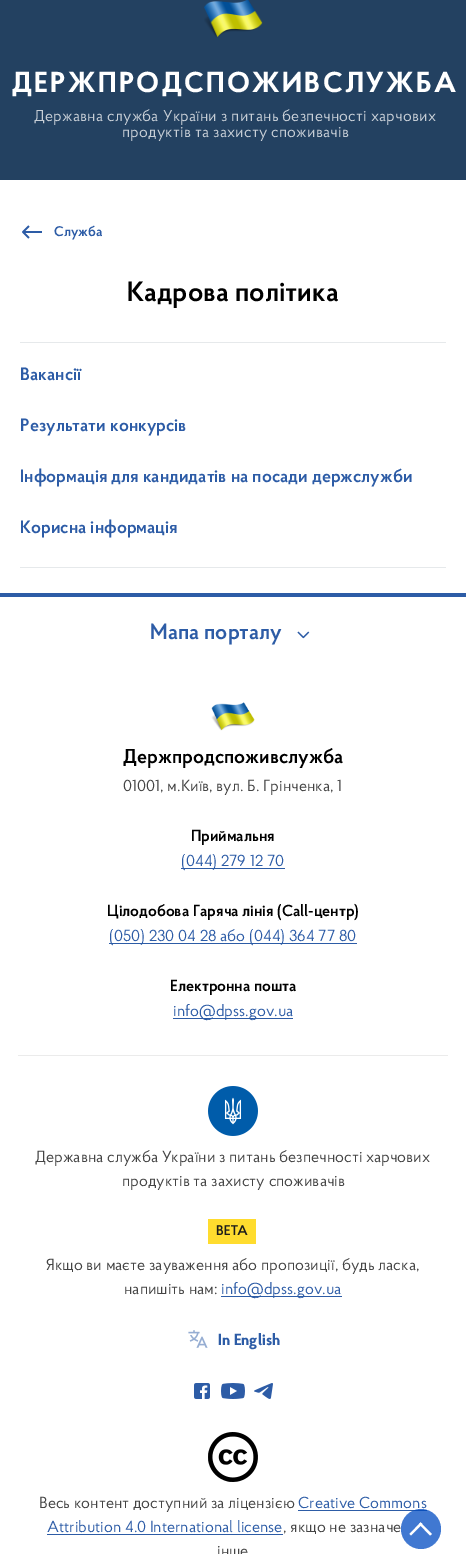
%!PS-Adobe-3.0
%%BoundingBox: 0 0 466 1554
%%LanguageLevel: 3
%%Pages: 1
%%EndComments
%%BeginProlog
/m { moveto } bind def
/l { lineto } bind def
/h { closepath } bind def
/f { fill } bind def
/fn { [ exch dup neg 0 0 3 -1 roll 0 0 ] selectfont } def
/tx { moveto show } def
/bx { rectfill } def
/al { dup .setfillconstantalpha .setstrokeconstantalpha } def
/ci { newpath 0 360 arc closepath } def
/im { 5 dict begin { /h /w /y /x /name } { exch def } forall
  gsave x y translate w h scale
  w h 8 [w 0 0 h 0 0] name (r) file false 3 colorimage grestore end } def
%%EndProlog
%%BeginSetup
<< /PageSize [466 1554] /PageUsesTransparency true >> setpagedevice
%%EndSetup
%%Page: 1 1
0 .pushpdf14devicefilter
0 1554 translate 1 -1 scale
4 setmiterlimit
1 setgray
0 0 466 1554 bx
0.137 0.255 0.38 setrgbcolor
0 0 466 180 bx
(image0.raw) 204 0 59 38 im
/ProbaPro-Bold 28.75 fn
1 setgray
12 92 m 2.4 0 (ДЕРЖПРОДСПОЖИВСЛУЖБА) ashow
/ProbaPro-Regular 15.85 fn
0.784 0.812 0.843 setrgbcolor
34 121 m 0.2 0 (Державна служба України з питань безпечності харчових) ashow
122 137 m 0.2 0 (продуктів та захисту споживачів) ashow
(image1.raw) 22 225 20 14 im
/ProbaPro-SemiBold 14 fn
0.176 0.361 0.651 setrgbcolor
(Служба) 54 236 tx
/ProbaPro-SemiBold 28 fn
0 setgray
(Кадрова політика) 127 301 tx
0.902 0.914 0.922 setrgbcolor
20 342 426 1 bx
20 567 426 1 bx
/ProbaPro-SemiBold 18 fn
0.176 0.361 0.651 setrgbcolor
(Вакансії) 20 380 tx
(Результати конкурсів) 20 431 tx
(Інформація для кандидатів на посади держслужби) 20 482 tx
(Корисна інформація) 20 533 tx
0 593 466 4 bx
0.922 setgray
18 1055 430 1 bx
/ProbaPro-SemiBold 22 fn
0.176 0.361 0.651 setrgbcolor
(Мапа порталу) 150 639 tx
(image2.raw) 297 631 13 8 im
(image3.raw) 211 702 44 29 im
/ProbaPro-SemiBold 20 fn
0 setgray
(Держпродспоживслужба) 123 763 tx
/ProbaPro-Regular 16 fn
0.267 setgray
(01001, м.Київ, вул. Б. Грінченка, 1) 123 791 tx
/ProbaPro-SemiBold 16 fn
0 setgray
(Приймальня) 191 841 tx
0.176 0.361 0.651 setrgbcolor
181 868 104 1 bx
/ProbaPro-Regular 16 fn
(\(044\) 279 12 70) 181 866 tx
/ProbaPro-SemiBold 16 fn
0 setgray
(Цілодобова Гаряча лінія \(Call-центр\)) 107 916 tx
0.176 0.361 0.651 setrgbcolor
109 943 248 1 bx
/ProbaPro-Regular 16 fn
(\(050\) 230 04 28 або \(044\) 364 77 80) 109 941 tx
/ProbaPro-SemiBold 16 fn
0 setgray
(Електронна пошта) 170 991 tx
0.176 0.361 0.651 setrgbcolor
173 1018 120 1 bx
/ProbaPro-Regular 16 fn
(info@dpss.gov.ua) 173 1016 tx
(image4.raw) 208 1086 50 50 im
0.267 setgray
(Державна служба України з питань безпечності харчових) 35 1162 tx
(продуктів та захисту споживачів) 122 1186 tx
(image5.raw) 208 1219 48 25 im
(Якщо ви маєте зауваження або пропозиції, будь ласка,) 46 1270 tx
(напишіть нам:) 124 1294 tx
0.176 0.361 0.651 setrgbcolor
221 1296 121 1 bx
(info@dpss.gov.ua) 221 1294 tx
(image6.raw) 188 1330 20 18 im
/ProbaPro-Bold 16 fn
(In English) 218 1345 tx
(image7.raw) 194 1383 16 16 im
(image8.raw) 221 1383 24 16 im
(image9.raw) 254 1383 19 16 im
(image10.raw) 208 1432 50 50 im
/ProbaPro-Regular 16 fn
0.267 setgray
(Весь контент доступний за ліцензією) 39 1508 tx
0.176 0.361 0.651 setrgbcolor
(Creative Commons) 298 1508 tx
298 1510 129 1 bx
(Attribution 4.0 International license) 47 1532 tx
47 1534 236 1 bx
0.267 setgray
(, якщо не зазначе) 283 1532 tx
(інше) 217 1556 tx
0.75 al
0 0.294 0.757 setrgbcolor
421 1529 20 ci f
1 al
1 setgray
419 1524 m 420.5 1522.5 l 432 1534 l 430 1535.5 l h f
420.5 1522.5 m 422.5 1524 l 411 1535.5 l 409.5 1534 l h f
.poppdf14devicefilter showpage
%%EOF
